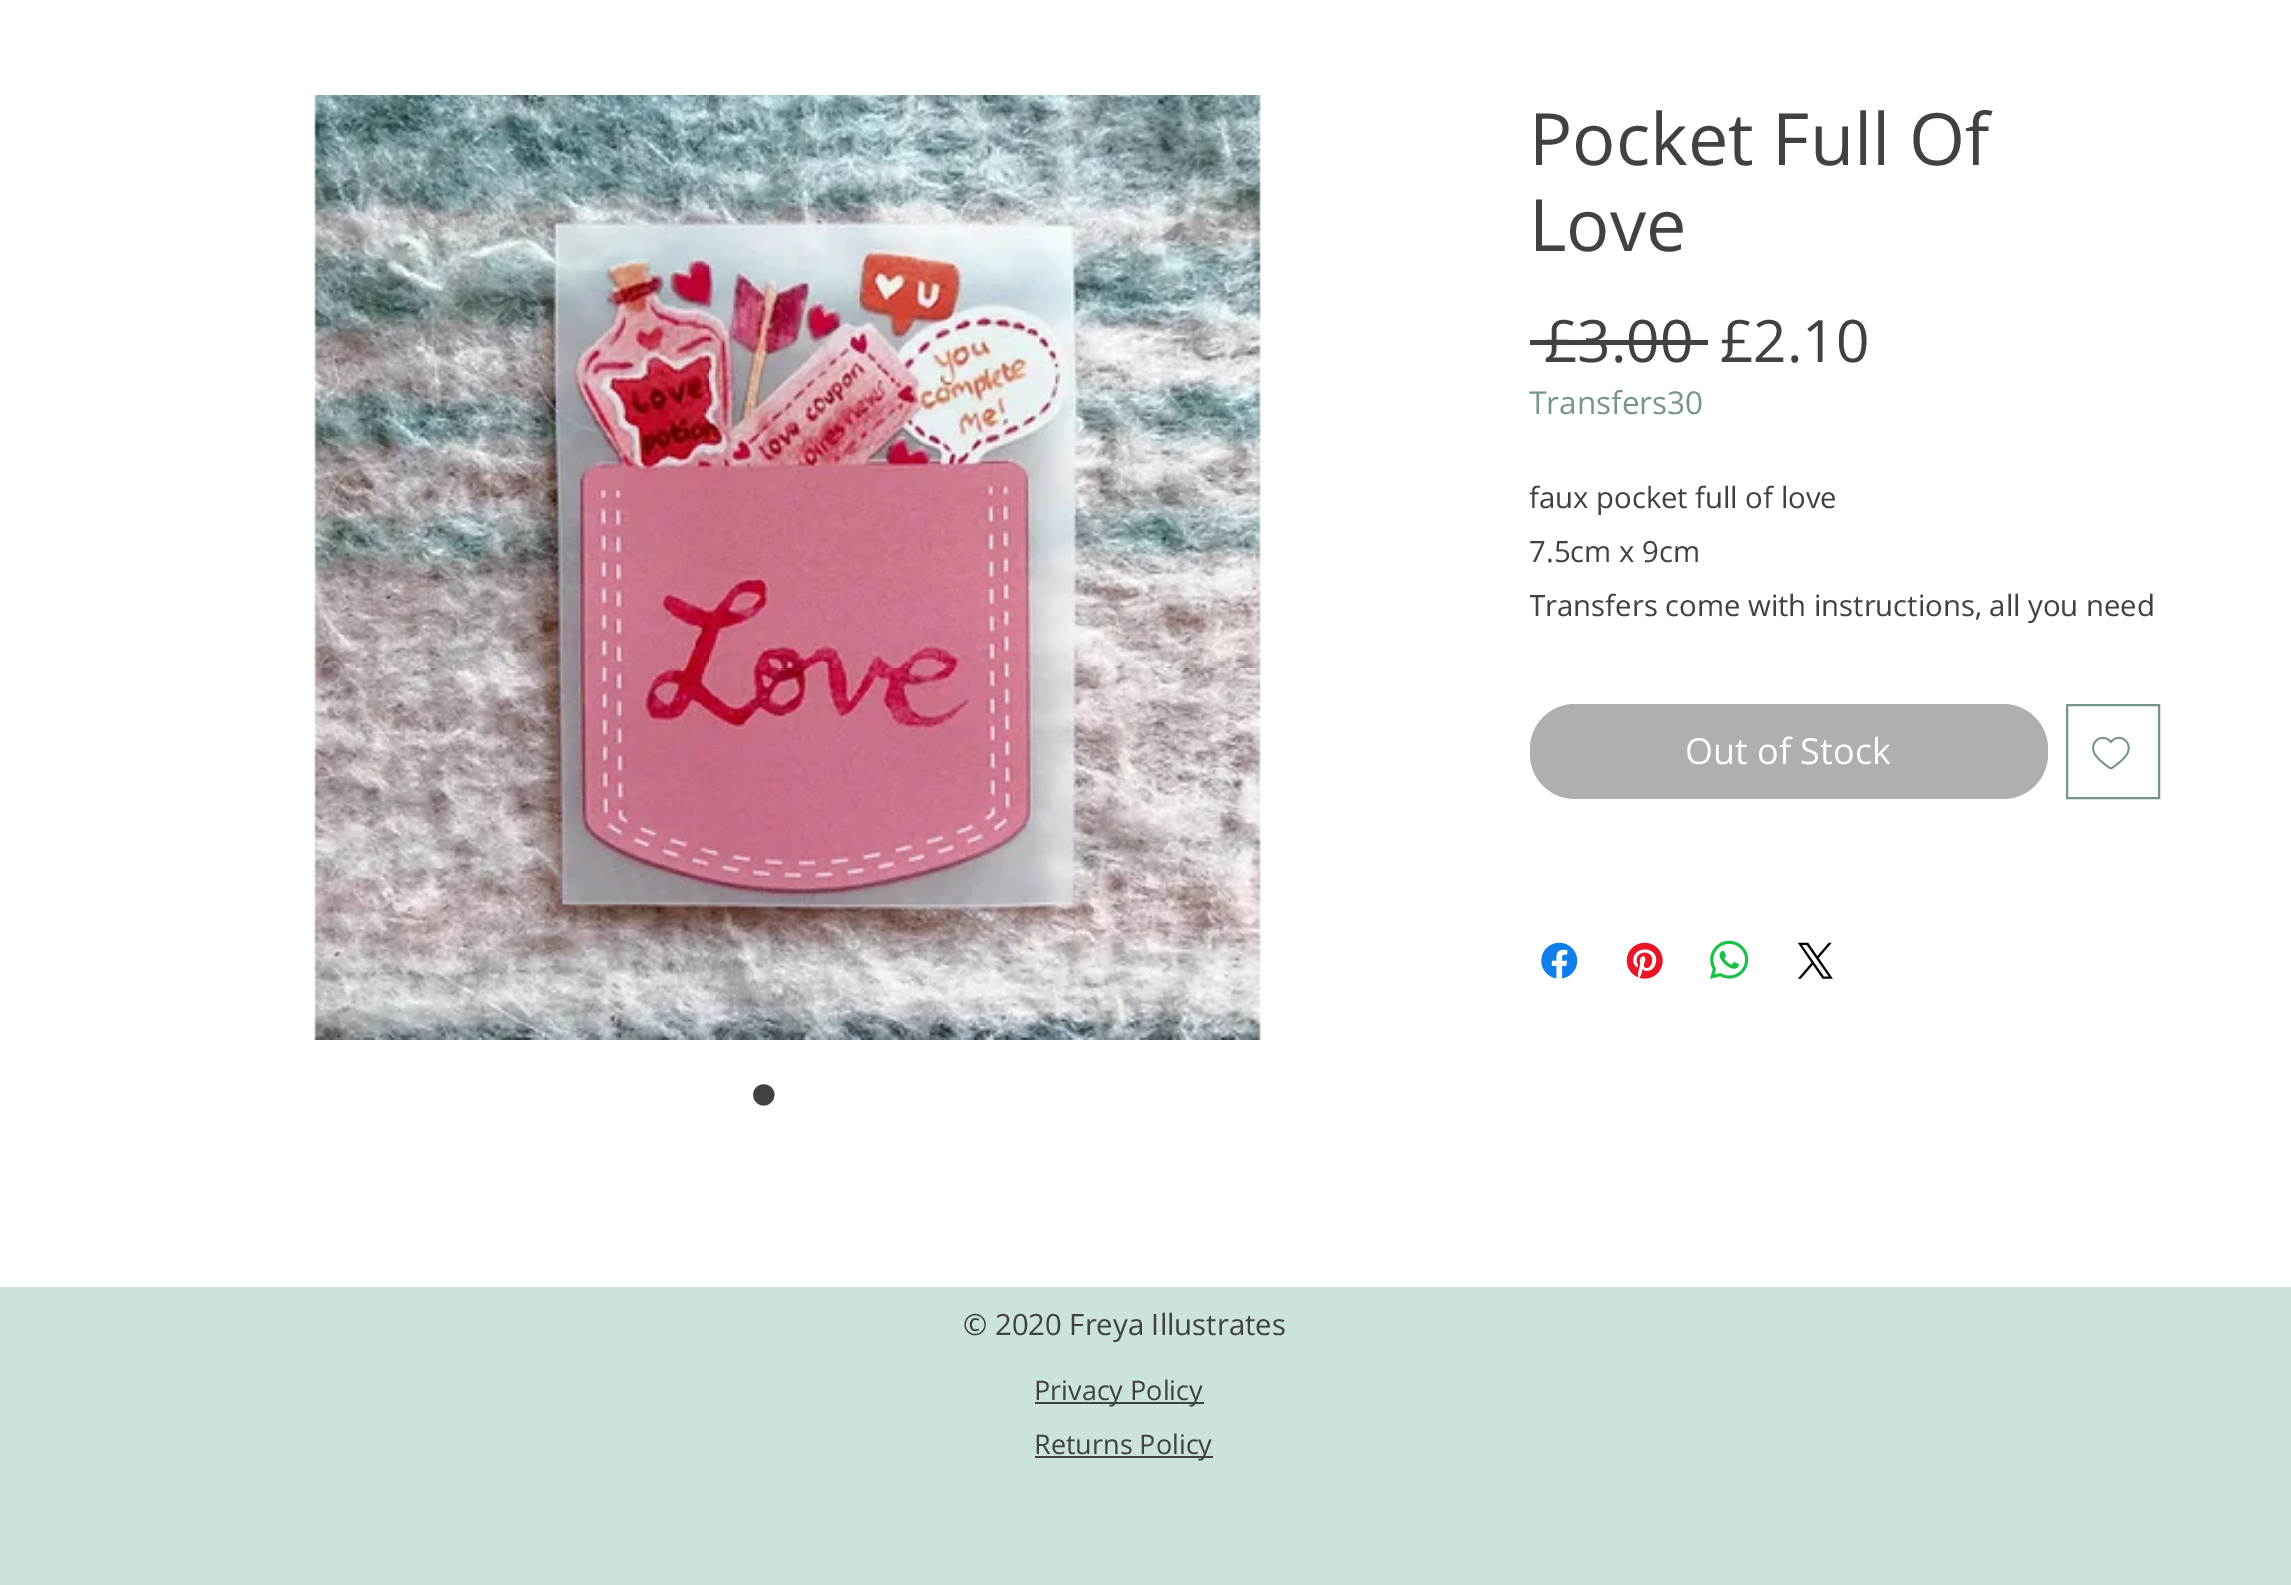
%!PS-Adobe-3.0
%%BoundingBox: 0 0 2291 1585
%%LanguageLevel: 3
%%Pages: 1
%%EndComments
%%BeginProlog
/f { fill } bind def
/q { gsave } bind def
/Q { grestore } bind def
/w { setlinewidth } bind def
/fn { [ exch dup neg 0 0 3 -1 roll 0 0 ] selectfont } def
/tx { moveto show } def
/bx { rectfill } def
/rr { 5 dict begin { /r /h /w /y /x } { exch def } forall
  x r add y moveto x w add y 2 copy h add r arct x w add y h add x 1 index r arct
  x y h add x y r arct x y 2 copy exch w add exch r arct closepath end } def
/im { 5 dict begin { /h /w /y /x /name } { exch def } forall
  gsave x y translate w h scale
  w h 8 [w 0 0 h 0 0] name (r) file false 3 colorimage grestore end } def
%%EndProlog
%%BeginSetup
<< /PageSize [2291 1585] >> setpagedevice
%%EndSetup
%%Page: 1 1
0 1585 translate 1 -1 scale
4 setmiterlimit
1 setgray
0 0 2291 1585 bx
/OpenSans-Regular 72 fn
0.255 setgray
(Pocket Full Of) 1529 165 tx
(Love) 1529 251 tx
/OpenSans-Regular 58.5 fn
(£3.00) 1544 362 tx
1530 340 178 5 bx
(£2.10) 1720 362 tx
/OpenSans-Regular 31.5 fn
0.463 0.58 0.553 setrgbcolor
(Transfers30) 1529 414 tx
/OpenSans-Regular 29.25 fn
0.255 setgray
(faux pocket full of love) 1529 508 tx
(7.5cm x 9cm) 1529 562 tx
q
1530 470 630 162 rectclip
(Transfers come with instructions, all you need) 1529 616 tx
Q
0.686 setgray
1530 704 518 95 45 rr f
/OpenSans-Regular 36 fn
1 setgray
(Out of Stock) 1685 764 tx
0.463 0.58 0.553 setrgbcolor
2 w
2067 705 92 93 rectstroke
(image0.raw) 2092 736 38 34 im
(image1.raw) 1541 942 37 37 im
(image2.raw) 1626 942 37 37 im
(image3.raw) 1710 940 39 39 im
(image4.raw) 1797 942 36 37 im
(image5.raw) 314 95 947 945 im
/LiberationSans-Regular 79 fn
0.255 setgray
(•) 750 1121 tx
0.796 0.886 0.867 setrgbcolor
0 1287 2291 298 bx
/OpenSans-Regular 29.25 fn
0.255 setgray
(© 2020 Freya Illustrates) 963 1335 tx
1035 1402 169 2 bx
/OpenSans-Regular 27 fn
(Privacy Policy) 1034 1400 tx
1035 1456 178 2 bx
(Returns Policy) 1034 1454 tx
showpage
%%EOF
